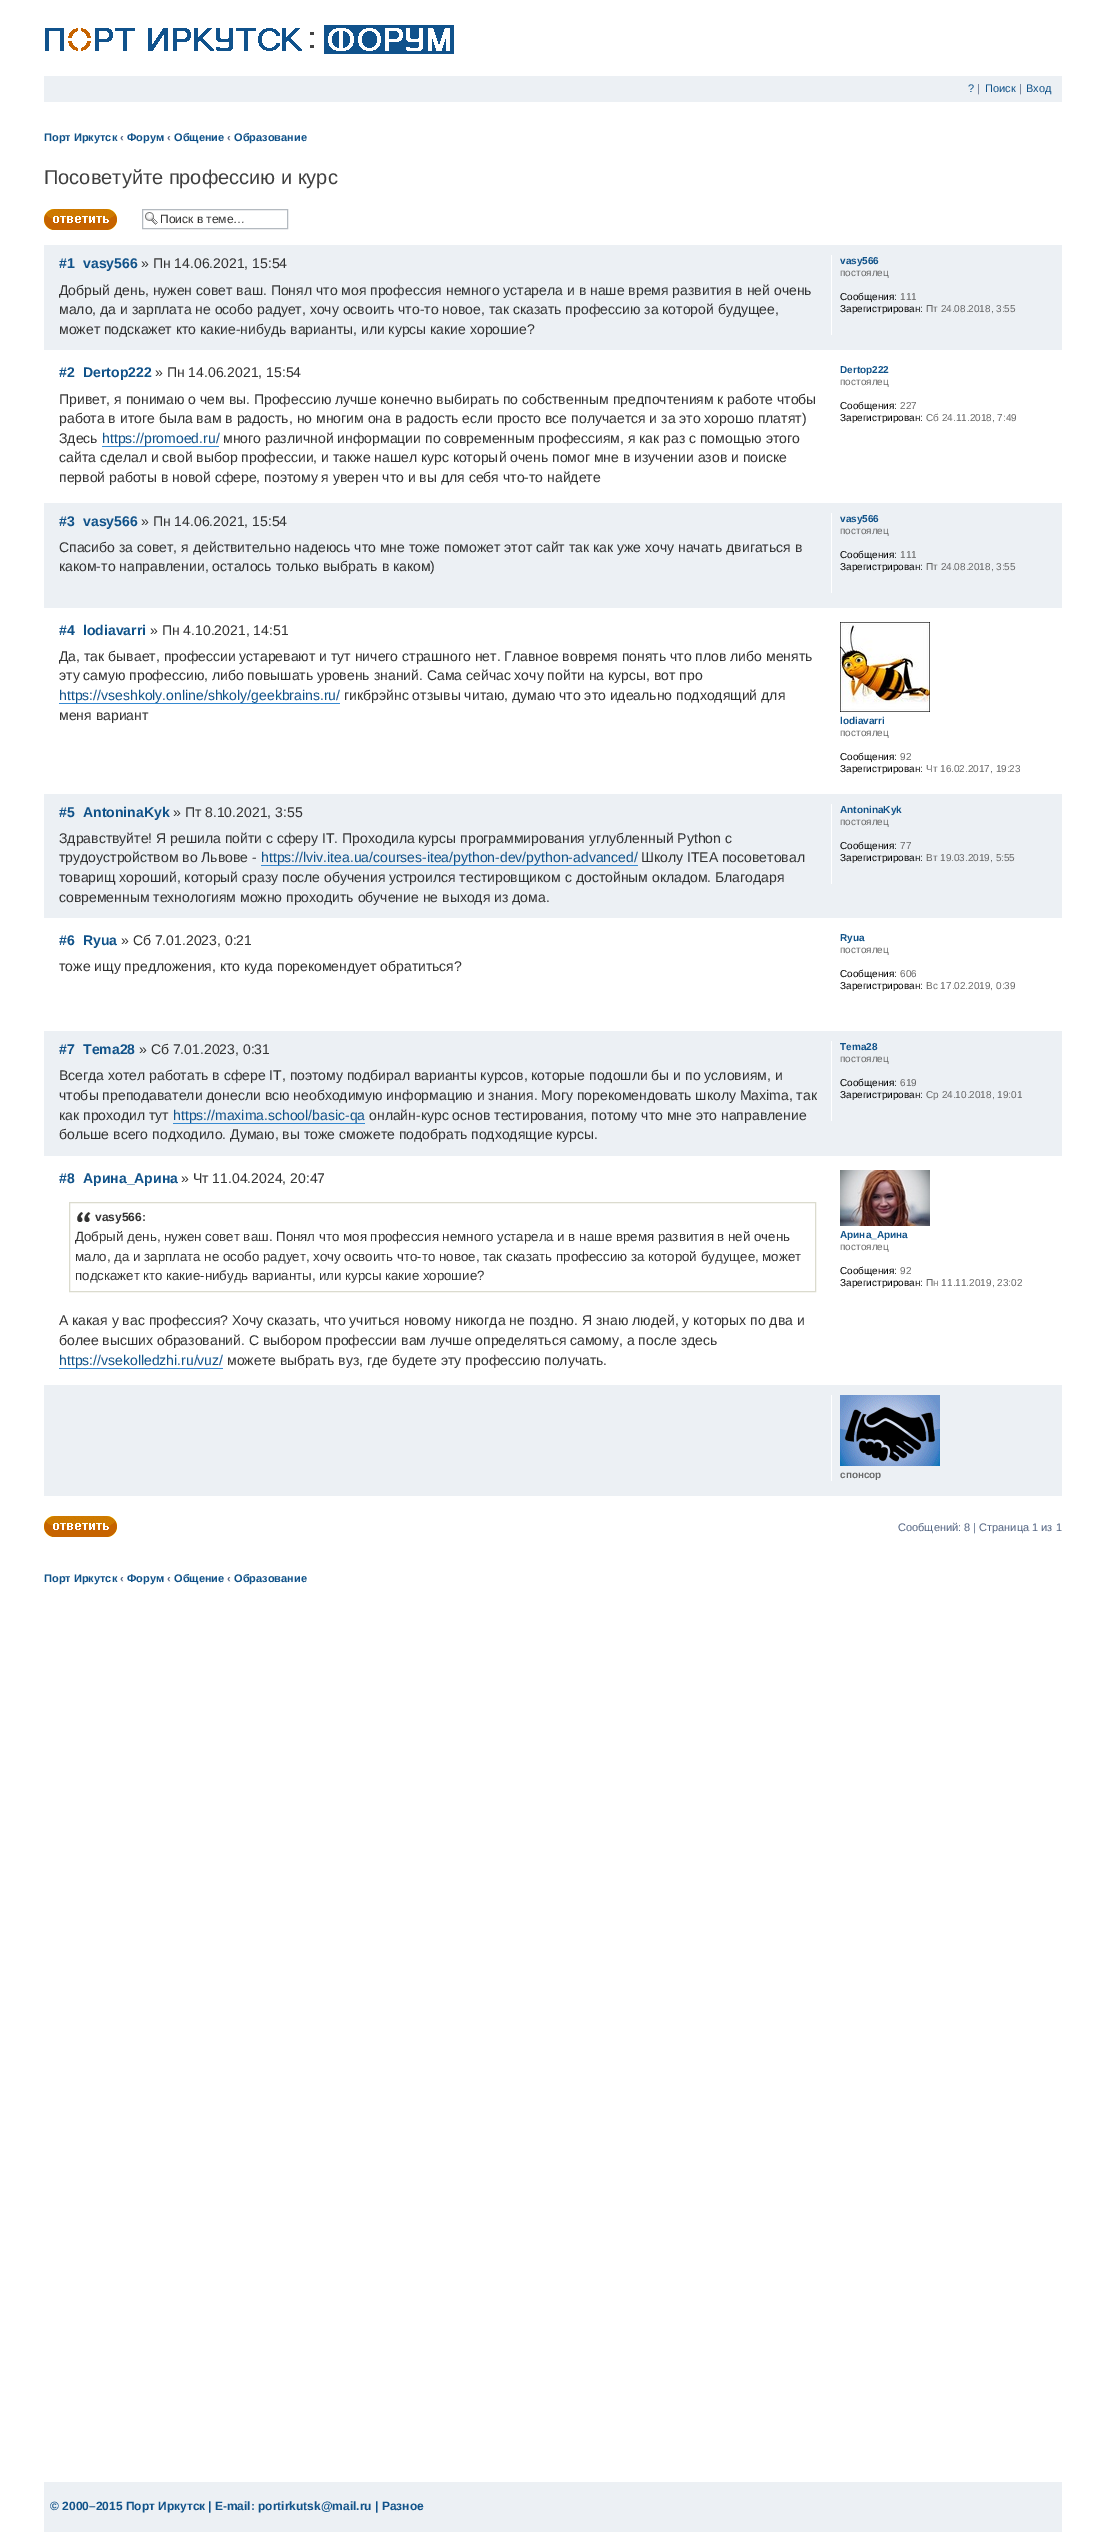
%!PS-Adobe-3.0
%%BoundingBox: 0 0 1106 2532
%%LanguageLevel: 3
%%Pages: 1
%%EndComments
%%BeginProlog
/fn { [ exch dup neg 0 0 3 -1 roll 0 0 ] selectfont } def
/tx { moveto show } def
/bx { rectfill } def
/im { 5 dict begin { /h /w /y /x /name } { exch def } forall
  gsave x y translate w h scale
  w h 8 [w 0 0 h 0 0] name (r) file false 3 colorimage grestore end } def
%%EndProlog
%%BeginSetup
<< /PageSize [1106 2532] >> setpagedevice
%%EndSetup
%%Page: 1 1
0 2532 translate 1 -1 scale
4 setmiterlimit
1 setgray
0 0 1106 2532 bx
(image0.raw) 45 28 257 23 im
(image1.raw) 310 32 4 16 im
(image2.raw) 324 25 130 29 im
0.925 0.941 0.957 setrgbcolor
44 76 1018 26 bx
/LiberationSans-Regular 11 fn
0.063 0.322 0.537 setrgbcolor
(?) 968 92 tx
0.325 0.392 0.51 setrgbcolor
(|) 977 92 tx
0.063 0.322 0.537 setrgbcolor
(Поиск) 985 92 tx
0.325 0.392 0.51 setrgbcolor
(|) 1019 92 tx
0.063 0.322 0.537 setrgbcolor
(Вход) 1026 92 tx
/LiberationSans-Bold 11 fn
(Порт Иркутск) 44 141 tx
0.325 0.392 0.51 setrgbcolor
(‹) 120 141 tx
0.063 0.322 0.537 setrgbcolor
(Форум) 127 141 tx
0.325 0.392 0.51 setrgbcolor
(‹) 167 141 tx
0.063 0.322 0.537 setrgbcolor
(Общение) 174 141 tx
0.325 0.392 0.51 setrgbcolor
(‹) 227 141 tx
0.063 0.322 0.537 setrgbcolor
(Образование) 234 141 tx
/LiberationSans-Regular 20 fn
0.247 setgray
(Посоветуйте профессию и курс) 44 184 tx
(image3.raw) 44 209 73 21 im
(image4.raw) 145 212 13 13 im
0.706 0.729 0.753 setrgbcolor
142.5 209.5 145 19 rectstroke
/LiberationSans-Regular 12 fn
0.2 setgray
(Поиск в теме…) 160 223 tx
0.925 0.941 0.957 setrgbcolor
44 245 1018 105 bx
/LiberationSans-Bold 14 fn
0.063 0.322 0.537 setrgbcolor
(#1) 59 268 tx
(vasy566) 83 268 tx
/LiberationSans-Regular 14 fn
0.2 setgray
(» Пн 14.06.2021, 15:54) 141 268 tx
(Добрый день, нужен совет ваш. Понял что моя профессия немного устарела и в наше время развития в ней очень) 59 295 tx
(мало, да и зарплата не особо радует, хочу освоить что-то новое, так сказать профессию за которой будущее,) 59 314 tx
(может подскажет кто какие-нибудь варианты, или курсы какие хорошие?) 59 334 tx
1 setgray
831 255 1 80 bx
/LiberationSans-Bold 10 fn
0.063 0.322 0.537 setrgbcolor
(vasy566) 840 264 tx
/LiberationSans-Regular 10 fn
0.4 setgray
(постоялец) 840 276 tx
0 setgray
(Сообщения:) 840 300 tx
0.4 setgray
(111) 900 300 tx
0 setgray
(Зарегистрирован:) 840 312 tx
0.4 setgray
(Пт 24.08.2018, 3:55) 926 312 tx
/LiberationSans-Bold 14 fn
0.063 0.322 0.537 setrgbcolor
(#2) 59 377 tx
(Dertop222) 83 377 tx
/LiberationSans-Regular 14 fn
0.2 setgray
(» Пн 14.06.2021, 15:54) 155 377 tx
(Привет, я понимаю о чем вы. Профессию лучше конечно выбирать по собственным предпочтениям к работе чтобы) 59 404 tx
(работа в итоге была вам в радость, но многим она в радость если просто все получается и за это хорошо платят\)) 59 423 tx
(Здесь) 59 443 tx
0.063 0.322 0.537 setrgbcolor
(https://promoed.ru/) 102 443 tx
0.212 0.541 0.824 setrgbcolor
102 446 117 1 bx
0.2 setgray
(много различной информации по современным профессиям, я как раз с помощью этого) 223 443 tx
(сайта сделал и свой выбор профессии, и также нашел курс который очень помог мне в изучении азов и поиске) 59 462 tx
(первой работы в новой сфере, поэтому я уверен что и вы для себя что-то найдете) 59 482 tx
/LiberationSans-Bold 10 fn
0.063 0.322 0.537 setrgbcolor
(Dertop222) 840 373 tx
/LiberationSans-Regular 10 fn
0.4 setgray
(постоялец) 840 385 tx
0 setgray
(Сообщения:) 840 409 tx
0.4 setgray
(227) 900 409 tx
0 setgray
(Зарегистрирован:) 840 421 tx
0.4 setgray
(Сб 24.11.2018, 7:49) 926 421 tx
0.925 0.941 0.957 setrgbcolor
44 503 1018 105 bx
/LiberationSans-Bold 14 fn
0.063 0.322 0.537 setrgbcolor
(#3) 59 526 tx
(vasy566) 83 526 tx
/LiberationSans-Regular 14 fn
0.2 setgray
(» Пн 14.06.2021, 15:54) 141 526 tx
(Спасибо за совет, я действительно надеюсь что мне тоже поможет этот сайт так как уже хочу начать двигаться в) 59 552 tx
(каком-то направлении, осталось только выбрать в каком\)) 59 571 tx
1 setgray
831 513 1 80 bx
/LiberationSans-Bold 10 fn
0.063 0.322 0.537 setrgbcolor
(vasy566) 840 522 tx
/LiberationSans-Regular 10 fn
0.4 setgray
(постоялец) 840 534 tx
0 setgray
(Сообщения:) 840 558 tx
0.4 setgray
(111) 900 558 tx
0 setgray
(Зарегистрирован:) 840 570 tx
0.4 setgray
(Пт 24.08.2018, 3:55) 926 570 tx
/LiberationSans-Bold 14 fn
0.063 0.322 0.537 setrgbcolor
(#4) 59 635 tx
(lodiavarri) 83 635 tx
/LiberationSans-Regular 14 fn
0.2 setgray
(» Пн 4.10.2021, 14:51) 150 635 tx
(Да, так бывает, профессии устаревают и тут ничего страшного нет. Главное вовремя понять что плов либо менять) 59 661 tx
(эту самую профессию, либо повышать уровень знаний. Сама сейчас хочу пойти на курсы, вот про) 59 680 tx
0.063 0.322 0.537 setrgbcolor
(https://vseshkoly.online/shkoly/geekbrains.ru/) 59 700 tx
0.212 0.541 0.824 setrgbcolor
59 703 281 1 bx
0.2 setgray
(гикбрэйнс отзывы читаю, думаю что это идеально подходящий для) 344 700 tx
(меня вариант) 59 720 tx
(image5.raw) 840 622 90 90 im
/LiberationSans-Bold 10 fn
0.063 0.322 0.537 setrgbcolor
(lodiavarri) 840 724 tx
/LiberationSans-Regular 10 fn
0.4 setgray
(постоялец) 840 736 tx
0 setgray
(Сообщения:) 840 760 tx
0.4 setgray
(92) 900 760 tx
0 setgray
(Зарегистрирован:) 840 772 tx
0.4 setgray
(Чт 16.02.2017, 19:23) 926 772 tx
0.925 0.941 0.957 setrgbcolor
44 794 1018 124 bx
/LiberationSans-Bold 14 fn
0.063 0.322 0.537 setrgbcolor
(#5) 59 817 tx
(AntoninaKyk) 83 817 tx
/LiberationSans-Regular 14 fn
0.2 setgray
(» Пт 8.10.2021, 3:55) 173 817 tx
(Здравствуйте! Я решила пойти с сферу IT. Проходила курсы программирования углубленный Python с) 59 843 tx
(трудоустройством во Львове -) 59 862 tx
0.063 0.322 0.537 setrgbcolor
(https://lviv.itea.ua/courses-itea/python-dev/python-advanced/) 261 862 tx
0.212 0.541 0.824 setrgbcolor
261 865 377 1 bx
0.2 setgray
(Школу ITEA посоветовал) 641 862 tx
(товарищ хороший, который сразу после обучения устроился тестировщиком с достойным окладом. Благодаря) 59 882 tx
(современным технологиям можно проходить обучение не выходя из дома.) 59 902 tx
1 setgray
831 804 1 80 bx
/LiberationSans-Bold 10 fn
0.063 0.322 0.537 setrgbcolor
(AntoninaKyk) 840 813 tx
/LiberationSans-Regular 10 fn
0.4 setgray
(постоялец) 840 825 tx
0 setgray
(Сообщения:) 840 849 tx
0.4 setgray
(77) 900 849 tx
0 setgray
(Зарегистрирован:) 840 861 tx
0.4 setgray
(Вт 19.03.2019, 5:55) 926 861 tx
/LiberationSans-Bold 14 fn
0.063 0.322 0.537 setrgbcolor
(#6) 59 945 tx
(Ryua) 83 945 tx
/LiberationSans-Regular 14 fn
0.2 setgray
(» Сб 7.01.2023, 0:21) 121 945 tx
(тоже ищу предложения, кто куда порекомендует обратиться?) 59 971 tx
/LiberationSans-Bold 10 fn
0.063 0.322 0.537 setrgbcolor
(Ryua) 840 941 tx
/LiberationSans-Regular 10 fn
0.4 setgray
(постоялец) 840 953 tx
0 setgray
(Сообщения:) 840 977 tx
0.4 setgray
(606) 900 977 tx
0 setgray
(Зарегистрирован:) 840 989 tx
0.4 setgray
(Вс 17.02.2019, 0:39) 926 989 tx
0.925 0.941 0.957 setrgbcolor
44 1031 1018 125 bx
/LiberationSans-Bold 14 fn
0.063 0.322 0.537 setrgbcolor
(#7) 59 1054 tx
(Tema28) 83 1054 tx
/LiberationSans-Regular 14 fn
0.2 setgray
(» Сб 7.01.2023, 0:31) 139 1054 tx
(Всегда хотел работать в сфере IT, поэтому подбирал варианты курсов, которые подошли бы и по условиям, и) 59 1080 tx
(чтобы преподаватели донесли всю необходимую информацию и знания. Могу порекомендовать школу Maxima, так) 59 1100 tx
(как проходил тут) 59 1120 tx
0.063 0.322 0.537 setrgbcolor
(https://maxima.school/basic-qa) 173 1120 tx
0.212 0.541 0.824 setrgbcolor
173 1123 192 1 bx
0.2 setgray
(онлайн-курс основ тестирования, потому что мне это направление) 369 1120 tx
(больше всего подходило. Думаю, вы тоже сможете подобрать подходящие курсы.) 59 1139 tx
1 setgray
831 1041 1 80 bx
/LiberationSans-Bold 10 fn
0.063 0.322 0.537 setrgbcolor
(Tema28) 840 1050 tx
/LiberationSans-Regular 10 fn
0.4 setgray
(постоялец) 840 1062 tx
0 setgray
(Сообщения:) 840 1086 tx
0.4 setgray
(619) 900 1086 tx
0 setgray
(Зарегистрирован:) 840 1098 tx
0.4 setgray
(Ср 24.10.2018, 19:01) 926 1098 tx
/LiberationSans-Bold 14 fn
0.063 0.322 0.537 setrgbcolor
(#8) 59 1183 tx
(Арина_Арина) 83 1183 tx
/LiberationSans-Regular 14 fn
0.2 setgray
(» Чт 11.04.2024, 20:47) 181 1183 tx
(image6.raw) 77 1212 14 10 im
0.859 0.859 0.808 setrgbcolor
69.5 1202.5 746 89 rectstroke
/LiberationSans-Bold 12 fn
0.2 setgray
(vasy566:) 95 1221 tx
/LiberationSans-Regular 13.3 fn
(Добрый день, нужен совет ваш. Понял что моя профессия немного устарела и в наше время развития в ней очень) 75 1241 tx
(мало, да и зарплата не особо радует, хочу освоить что-то новое, так сказать профессию за которой будущее, может) 75 1261 tx
(подскажет кто какие-нибудь варианты, или курсы какие хорошие?) 75 1280 tx
/LiberationSans-Regular 14 fn
(А какая у вас профессия? Хочу сказать, что учиться новому никогда не поздно. Я знаю людей, у которых по два и) 59 1325 tx
(более высших образований. С выбором профессии вам лучше определяться самому, а после здесь) 59 1345 tx
0.063 0.322 0.537 setrgbcolor
(https://vsekolledzhi.ru/vuz/) 59 1365 tx
0.212 0.541 0.824 setrgbcolor
59 1368 164 1 bx
0.2 setgray
(можете выбрать вуз, где будете эту профессию получать.) 227 1365 tx
(image7.raw) 840 1170 90 56 im
/LiberationSans-Bold 10 fn
0.063 0.322 0.537 setrgbcolor
(Арина_Арина) 840 1238 tx
/LiberationSans-Regular 10 fn
0.4 setgray
(постоялец) 840 1250 tx
0 setgray
(Сообщения:) 840 1274 tx
0.4 setgray
(92) 900 1274 tx
0 setgray
(Зарегистрирован:) 840 1286 tx
0.4 setgray
(Пн 11.11.2019, 23:02) 926 1286 tx
0.925 0.941 0.957 setrgbcolor
44 1385 1018 111 bx
1 setgray
831 1395 1 86 bx
(image8.raw) 840 1395 100 71 im
/LiberationSans-Bold 10 fn
0.4 setgray
(спонсор) 840 1478 tx
(image3.raw) 44 1516 73 21 im
/LiberationSans-Regular 11 fn
0.325 0.392 0.51 setrgbcolor
(Сообщений: 8 | Страница 1 из 1) 898 1531 tx
/LiberationSans-Bold 11 fn
0.063 0.322 0.537 setrgbcolor
(Порт Иркутск) 44 1582 tx
0.325 0.392 0.51 setrgbcolor
(‹) 120 1582 tx
0.063 0.322 0.537 setrgbcolor
(Форум) 127 1582 tx
0.325 0.392 0.51 setrgbcolor
(‹) 167 1582 tx
0.063 0.322 0.537 setrgbcolor
(Общение) 174 1582 tx
0.325 0.392 0.51 setrgbcolor
(‹) 227 1582 tx
0.063 0.322 0.537 setrgbcolor
(Образование) 234 1582 tx
0.925 0.941 0.957 setrgbcolor
44 2482 1018 50 bx
/LiberationSans-Bold 12 fn
0.063 0.322 0.537 setrgbcolor
(© 2000–2015 Порт Иркутск) 50 2510 tx
(| E-mail: portirkutsk@mail.ru) 208 2510 tx
(| Разное) 375 2510 tx
showpage
%%EOF
